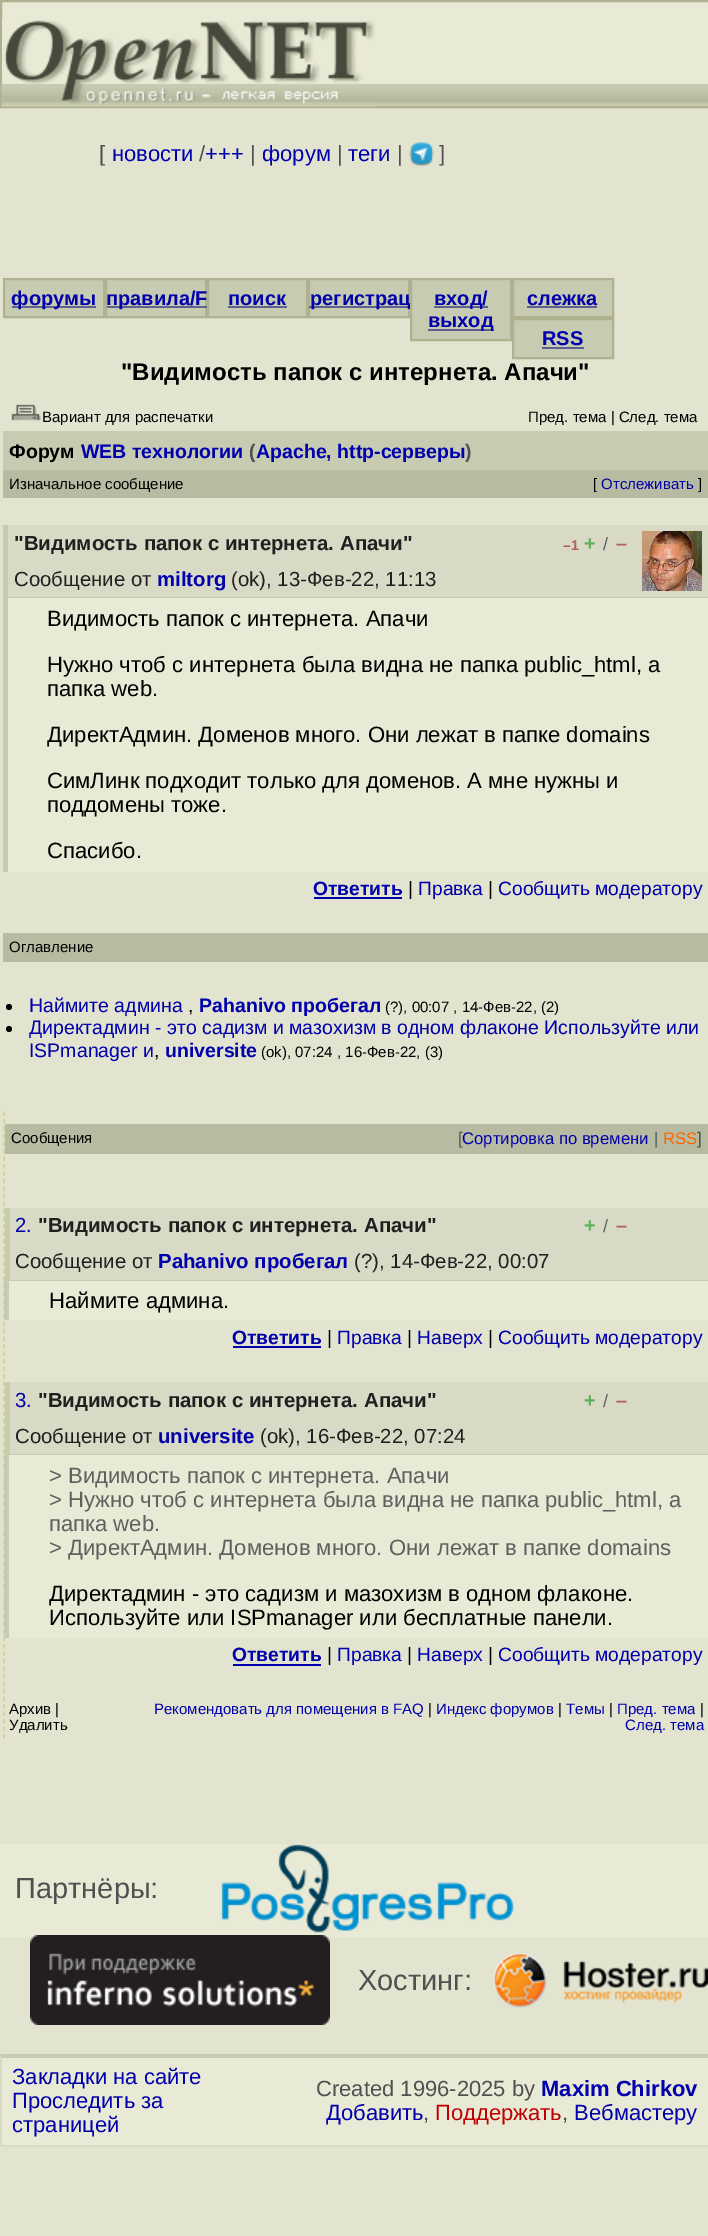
%!PS-Adobe-3.0
%%BoundingBox: 0 0 708 2236
%%LanguageLevel: 3
%%Pages: 1
%%EndComments
%%BeginProlog
/m { moveto } bind def
/l { lineto } bind def
/h { closepath } bind def
/f { fill } bind def
/S { stroke } bind def
/q { gsave } bind def
/Q { grestore } bind def
/w { setlinewidth } bind def
/fn { [ exch dup neg 0 0 3 -1 roll 0 0 ] selectfont } def
/tx { moveto show } def
/bx { rectfill } def
/ci { newpath 0 360 arc closepath } def
/im { 5 dict begin { /h /w /y /x /name } { exch def } forall
  gsave x y translate w h scale
  w h 8 [w 0 0 h 0 0] name (r) file false 3 colorimage grestore end } def
%%EndProlog
%%BeginSetup
<< /PageSize [708 2236] >> setpagedevice
%%EndSetup
%%Page: 1 1
0 2236 translate 1 -1 scale
4 setmiterlimit
0.89 0.894 0.816 setrgbcolor
0 0 708 2236 bx
0.914 0.918 0.839 setrgbcolor
2 2 706 82 bx
(image0.raw) 2 84 706 22 im
0.69 0.694 0.565 setrgbcolor
2 w
1 1 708 106 rectstroke
(image1.raw) 1 20 374 87 im
/LiberationSans-Regular 22 fn
0.314 setgray
([) 99 161 tx
0 0 0.678 setrgbcolor
(новости) 112 161 tx
0.314 setgray
(/) 199 161 tx
0 0 0.678 setrgbcolor
(+++) 205 161 tx
0.314 setgray
(|) 250 161 tx
0 0 0.678 setrgbcolor
(форум) 262 161 tx
0.314 setgray
(|) 337 161 tx
0 0 0.678 setrgbcolor
(теги) 348 161 tx
0.314 setgray
(|) 397 161 tx
(image2.raw) 409 142 25 25 im
(]) 439 161 tx
0.78 0.796 0.694 setrgbcolor
4 279 m 104 279 l 104 317 l 4 317 l h q f Q
0.69 0.694 0.565 setrgbcolor
S
0.376 0.376 0.565 setrgbcolor
12 306 84 2 bx
/LiberationSans-Bold 20 fn
0 0 0.678 setrgbcolor
(форумы) 11 305 tx
0.78 0.796 0.694 setrgbcolor
106 279 m 206 279 l 206 317 l 106 317 l h q f Q
0.69 0.694 0.565 setrgbcolor
S
0.376 0.376 0.565 setrgbcolor
107 306 100 2 bx
0 0 0.678 setrgbcolor
(правила/F) 106 305 tx
0.78 0.796 0.694 setrgbcolor
208 279 m 307 279 l 307 317 l 208 317 l h q f Q
0.69 0.694 0.565 setrgbcolor
S
0 0 0.678 setrgbcolor
(поиск) 228 305 tx
0.376 0.376 0.565 setrgbcolor
228 306 59 2 bx
0.78 0.796 0.694 setrgbcolor
309 279 m 409 279 l 409 317 l 309 317 l h q f Q
0.69 0.694 0.565 setrgbcolor
S
0.376 0.376 0.565 setrgbcolor
309 306 101 2 bx
0 0 0.678 setrgbcolor
(регистрац) 310 305 tx
0.78 0.796 0.694 setrgbcolor
411 279 m 511 279 l 511 340 l 411 340 l h q f Q
0.69 0.694 0.565 setrgbcolor
S
0.376 0.376 0.565 setrgbcolor
434 306 54 2 bx
0 0 0.678 setrgbcolor
(вход/) 434 305 tx
0.376 0.376 0.565 setrgbcolor
428 329 66 2 bx
0 0 0.678 setrgbcolor
(выход) 428 327 tx
0.78 0.796 0.694 setrgbcolor
513 279 m 613 279 l 613 317 l 513 317 l h q f Q
0.69 0.694 0.565 setrgbcolor
S
0 0 0.678 setrgbcolor
(слежка) 527 305 tx
0.376 0.376 0.565 setrgbcolor
527 306 70 2 bx
0.78 0.796 0.694 setrgbcolor
513 319 m 613 319 l 613 358 l 513 358 l h q f Q
0.69 0.694 0.565 setrgbcolor
S
0 0 0.678 setrgbcolor
(RSS) 542 345 tx
0.376 0.376 0.565 setrgbcolor
542 347 42 2 bx
/LiberationSans-Bold 24 fn
0 setgray
("Видимость папок с интернета. Апачи") 121 380 tx
(image3.raw) 11 404 30 17 im
/LiberationSans-Regular 15 fn
(Вариант для распечатки) 42 422 tx
(Пред. тема | След. тема) 528 422 tx
0.78 0.796 0.694 setrgbcolor
3 431 705 39 bx
/LiberationSans-Bold 19.5 fn
0 setgray
(Форум) 9 458 tx
0 0 0.678 setrgbcolor
(WEB технологии) 81 458 tx
0.314 setgray
(\() 249 458 tx
0 0 0.678 setrgbcolor
(Apache, http-серверы) 256 458 tx
0.314 setgray
(\)) 465 458 tx
0.718 0.733 0.631 setrgbcolor
3 470 705 28 bx
/LiberationSans-Regular 15 fn
0 setgray
(Изначальное сообщение) 9 489 tx
([) 593 489 tx
0 0 0.678 setrgbcolor
(Отслеживать) 601 489 tx
0 setgray
(]) 698 489 tx
0.851 0.855 0.776 setrgbcolor
8 525 628 72 bx
0.78 0.796 0.694 setrgbcolor
3 525 5 72 bx
/LiberationSans-Bold 20.4 fn
0.125 setgray
("Видимость папок с интернета. Апачи") 14 550 tx
/LiberationSans-Bold 14 fn
0.69 0.376 0.376 setrgbcolor
(–1) 563 550 tx
/LiberationSans-Bold 20 fn
0.376 0.69 0.376 setrgbcolor
(+) 584 550 tx
/LiberationSans-Regular 18 fn
0.376 setgray
(/) 603 550 tx
/LiberationSans-Bold 20 fn
0.69 0.376 0.376 setrgbcolor
(–) 616 550 tx
0.851 0.855 0.776 setrgbcolor
636 525 72 72 bx
(image4.raw) 642 531 60 60 im
/LiberationSans-Regular 20.4 fn
0.125 setgray
(Сообщение от) 14 586 tx
/LiberationSans-Bold 20.4 fn
0 0 0.678 setrgbcolor
(miltorg) 157 586 tx
/LiberationSans-Regular 20.4 fn
0.125 setgray
(\(ok\), 13-Фев-22, 11:13) 231 586 tx
0.914 0.918 0.839 setrgbcolor
3 597 705 275 bx
0.788 0.792 0.714 setrgbcolor
3 597 m 708 597 l 708 598 l 8 598 l h f
0.78 0.796 0.694 setrgbcolor
3 872 m 3 597 l 8 598 l 8 872 l h f
/LiberationSans-Regular 22.1 fn
0 setgray
(Видимость папок с интернета. Апачи) 47 626 tx
(Нужно чтоб с интернета была видна не папка public_html, а) 47 672 tx
(папка web.) 47 696 tx
(ДиректАдмин. Доменов много. Они лежат в папке domains) 47 742 tx
(СимЛинк подходит только для доменов. А мне нужны и) 47 788 tx
(поддомены тоже.) 47 812 tx
(Спасибо.) 47 858 tx
/LiberationSans-Bold 19.25 fn
0 0 0.678 setrgbcolor
(Ответить) 313 895 tx
314 897 88 2 bx
/LiberationSans-Regular 19.25 fn
0 setgray
(|) 408 895 tx
0 0 0.678 setrgbcolor
(Правка) 418 895 tx
0 setgray
(|) 488 895 tx
0 0 0.678 setrgbcolor
(Cообщить модератору) 498 895 tx
0.718 0.733 0.631 setrgbcolor
3 933 705 29 bx
/LiberationSans-Regular 15 fn
0 setgray
(Оглавление) 9 952 tx
9 1007 3 ci f
/LiberationSans-Regular 19.5 fn
0 0 0.678 setrgbcolor
(Наймите админа) 29 1012 tx
/LiberationSans-Bold 19.5 fn
(Pahanivo пробегал) 199 1012 tx
/LiberationSans-Regular 15 fn
0 setgray
(\(?\), 00:07 , 14-Фев-22, \(2\)) 385 1012 tx
/LiberationSans-Regular 19.5 fn
(,) 188 1012 tx
9 1029 3 ci f
0 0 0.678 setrgbcolor
(Директадмин - это садизм и мазохизм в одном флаконе Используйте или) 29 1034 tx
(ISPmanager и) 29 1057 tx
0 setgray
(,) 154 1057 tx
/LiberationSans-Bold 19.5 fn
0 0 0.678 setrgbcolor
(universite) 165 1057 tx
/LiberationSans-Regular 15 fn
0 setgray
(\(ok\), 07:24 , 16-Фев-22, \(3\)) 261 1057 tx
0.816 0.816 0.565 setrgbcolor
1.5 w
[4.5 3] 0 setdash
4 1111.5 m 4 1738.5 l S
0.718 0.733 0.631 setrgbcolor
5 1124 703 30 bx
0 setgray
(Сообщения) 11 1143 tx
/LiberationSans-Regular 16.75 fn
0.314 setgray
([) 458 1144 tx
0 0 0.678 setrgbcolor
(Сортировка по времени) 462 1144 tx
0.314 setgray
(|) 654 1144 tx
1 0.4 0 setrgbcolor
(RSS) 663 1144 tx
0.314 setgray
(]) 697 1144 tx
0.851 0.855 0.776 setrgbcolor
10 1208 626 72 bx
0.78 0.796 0.694 setrgbcolor
5 1208 5 72 bx
/LiberationSans-Regular 20.4 fn
0 0 0.678 setrgbcolor
(2.) 15 1232 tx
/LiberationSans-Bold 20.4 fn
0.125 setgray
("Видимость папок с интернета. Апачи") 38 1232 tx
/LiberationSans-Bold 20 fn
0.376 0.69 0.376 setrgbcolor
(+) 584 1232 tx
/LiberationSans-Regular 18 fn
0.376 setgray
(/) 603 1232 tx
/LiberationSans-Bold 20 fn
0.69 0.376 0.376 setrgbcolor
(–) 616 1232 tx
0.851 0.855 0.776 setrgbcolor
636 1208 72 72 bx
/LiberationSans-Regular 20.4 fn
0.125 setgray
(Сообщение от) 15 1268 tx
/LiberationSans-Bold 20.4 fn
0 0 0.678 setrgbcolor
(Pahanivo пробегал) 158 1268 tx
/LiberationSans-Regular 20.4 fn
0.125 setgray
(\(?\), 14-Фев-22, 00:07) 354 1268 tx
0.914 0.918 0.839 setrgbcolor
5 1280 703 40 bx
0.788 0.792 0.714 setrgbcolor
4 1280 m 708 1280 l 708 1281 l 9 1281 l h f
0.78 0.796 0.694 setrgbcolor
4 1320 m 4 1280 l 9 1281 l 9 1320 l h f
/LiberationSans-Regular 22.1 fn
0 setgray
(Наймите админа.) 49 1308 tx
/LiberationSans-Bold 19.25 fn
0 0 0.678 setrgbcolor
(Ответить) 232 1344 tx
233 1346 88 2 bx
/LiberationSans-Regular 19.25 fn
0 setgray
(|) 327 1344 tx
0 0 0.678 setrgbcolor
(Правка) 337 1344 tx
0 setgray
(|) 407 1344 tx
0 0 0.678 setrgbcolor
(Наверх) 417 1344 tx
0 setgray
(|) 488 1344 tx
0 0 0.678 setrgbcolor
(Cообщить модератору) 498 1344 tx
0.851 0.855 0.776 setrgbcolor
10 1382 626 72 bx
0.78 0.796 0.694 setrgbcolor
5 1382 5 72 bx
/LiberationSans-Regular 20.4 fn
0 0 0.678 setrgbcolor
(3.) 15 1407 tx
/LiberationSans-Bold 20.4 fn
0.125 setgray
("Видимость папок с интернета. Апачи") 38 1407 tx
/LiberationSans-Bold 20 fn
0.376 0.69 0.376 setrgbcolor
(+) 584 1407 tx
/LiberationSans-Regular 18 fn
0.376 setgray
(/) 603 1407 tx
/LiberationSans-Bold 20 fn
0.69 0.376 0.376 setrgbcolor
(–) 616 1407 tx
0.851 0.855 0.776 setrgbcolor
636 1382 72 72 bx
/LiberationSans-Regular 20.4 fn
0.125 setgray
(Сообщение от) 15 1443 tx
/LiberationSans-Bold 20.4 fn
0 0 0.678 setrgbcolor
(universite) 158 1443 tx
/LiberationSans-Regular 20.4 fn
0.125 setgray
(\(ok\), 16-Фев-22, 07:24) 260 1443 tx
0.914 0.918 0.839 setrgbcolor
5 1454 703 184 bx
0.788 0.792 0.714 setrgbcolor
4 1454 m 708 1454 l 708 1455 l 9 1455 l h f
0.78 0.796 0.694 setrgbcolor
4 1638 m 4 1454 l 9 1455 l 9 1638 l h f
/LiberationSans-Regular 22.1 fn
0.376 setgray
(> Видимость папок с интернета. Апачи) 49 1483 tx
(> Нужно чтоб с интернета была видна не папка public_html, а) 49 1507 tx
(папка web.) 49 1531 tx
(> ДиректАдмин. Доменов много. Они лежат в папке domains) 49 1555 tx
0 setgray
(Директадмин - это садизм и мазохизм в одном флаконе.) 49 1601 tx
(Используйте или ISPmanager или бесплатные панели.) 49 1625 tx
/LiberationSans-Bold 19.25 fn
0 0 0.678 setrgbcolor
(Ответить) 232 1661 tx
233 1664 88 2 bx
/LiberationSans-Regular 19.25 fn
0 setgray
(|) 327 1661 tx
0 0 0.678 setrgbcolor
(Правка) 337 1661 tx
0 setgray
(|) 407 1661 tx
0 0 0.678 setrgbcolor
(Наверх) 417 1661 tx
0 setgray
(|) 488 1661 tx
0 0 0.678 setrgbcolor
(Cообщить модератору) 498 1661 tx
/LiberationSans-Regular 15 fn
0 setgray
(Архив |) 9 1714 tx
(Удалить) 9 1730 tx
0 0 0.678 setrgbcolor
(Рекомендовать для помещения в FAQ) 154 1714 tx
0 setgray
(|) 428 1714 tx
0 0 0.678 setrgbcolor
(Индекс форумов) 436 1714 tx
0 setgray
(|) 558 1714 tx
0 0 0.678 setrgbcolor
(Темы) 566 1714 tx
0 setgray
(|) 609 1714 tx
0 0 0.678 setrgbcolor
(Пред. тема) 617 1714 tx
0 setgray
(|) 700 1714 tx
0 0 0.678 setrgbcolor
(След. тема) 625 1730 tx
0.914 0.918 0.839 setrgbcolor
0 1844 708 93 bx
/LiberationSans-Regular 29 fn
0.314 setgray
(Партнёры:) 15 1898 tx
(image5.raw) 221 1844 293 89 im
(image6.raw) 30 1935 300 90 im
(Хостинг:) 358 1990 tx
(image7.raw) 493 1953 215 55 im
0.914 0.918 0.839 setrgbcolor
0 2054 708 91 bx
0.788 0.792 0.714 setrgbcolor
0 2054 m 708 2054 l 708 2058 l 2 2058 l h f
0.851 0.855 0.776 setrgbcolor
0 2145 708 2 bx
0 2146 m 0 2054 l 2 2058 l 2 2145 l h f
/LiberationSans-Regular 22 fn
0 0 0.678 setrgbcolor
(Закладки на сайте) 12 2084 tx
(Проследить за) 12 2108 tx
(страницей) 12 2132 tx
0.314 setgray
(Created 1996-2025 by) 316 2096 tx
/LiberationSans-Bold 22 fn
0 0 0.678 setrgbcolor
(Maxim Chirkov) 541 2096 tx
/LiberationSans-Regular 22 fn
(Добавить) 326 2120 tx
0.314 setgray
(,) 423 2120 tx
0.753 0 0 setrgbcolor
(Поддержать) 435 2120 tx
0.314 setgray
(,) 562 2120 tx
0 0 0.678 setrgbcolor
(Вебмастеру) 574 2120 tx
showpage
%%EOF
